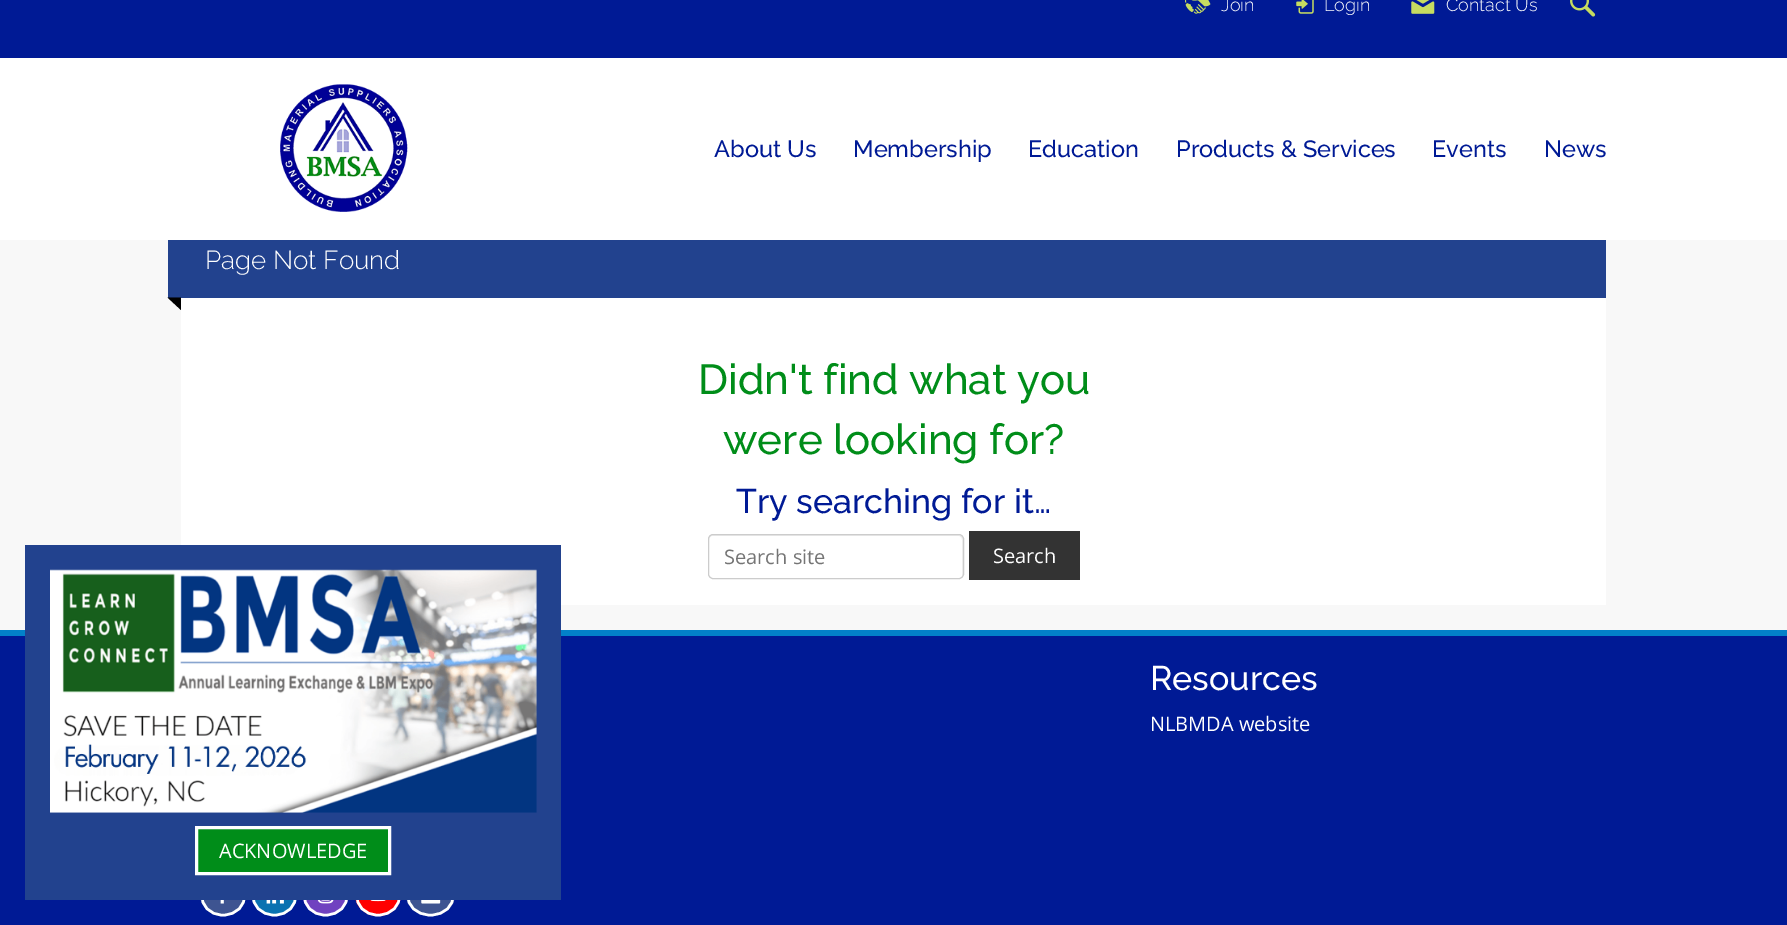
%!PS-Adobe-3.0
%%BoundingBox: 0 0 1787 925
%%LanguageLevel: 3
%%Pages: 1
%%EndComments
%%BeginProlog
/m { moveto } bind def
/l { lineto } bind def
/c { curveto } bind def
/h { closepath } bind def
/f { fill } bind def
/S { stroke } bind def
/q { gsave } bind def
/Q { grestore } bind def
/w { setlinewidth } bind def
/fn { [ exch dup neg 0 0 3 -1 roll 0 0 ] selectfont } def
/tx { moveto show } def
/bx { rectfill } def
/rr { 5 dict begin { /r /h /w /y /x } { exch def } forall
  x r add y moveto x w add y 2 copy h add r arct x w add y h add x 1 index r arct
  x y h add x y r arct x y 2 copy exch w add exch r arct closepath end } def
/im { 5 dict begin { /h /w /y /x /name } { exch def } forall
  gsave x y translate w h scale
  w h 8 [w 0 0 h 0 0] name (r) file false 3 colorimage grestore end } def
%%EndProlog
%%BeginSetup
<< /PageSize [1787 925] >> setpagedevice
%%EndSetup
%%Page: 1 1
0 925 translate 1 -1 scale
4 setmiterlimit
0.973 setgray
0 0 1787 925 bx
1 setgray
0 58 1787 182 bx
0 0.102 0.584 setrgbcolor
0 0 1787 58 bx
(image0.raw) 1185 0 26 14 im
/Raleway-Light 18 fn
1 setgray
(Join) 1221 11 tx
(image1.raw) 1296 0 18 14 im
(Login) 1324 11 tx
(image2.raw) 1411 0 24 14 im
(Contact Us) 1446 11 tx
(image3.raw) 1570 0 26 17 im
(image4.raw) 280 84 128 128 im
/Raleway-Medium 23.5 fn
0 0.102 0.584 setrgbcolor
(About Us) 714 157 tx
(Membership) 853 157 tx
(Education) 1028 157 tx
(Products & Services) 1176 157 tx
(Events) 1432 157 tx
(News) 1544 157 tx
0.133 0.259 0.557 setrgbcolor
168 240 1438 58 bx
/Raleway-Light 26 fn
1 setgray
(Page Not Found) 205 269 tx
0 setgray
167.5 297.5 m 181 297.5 l 181 310 l h f
1 setgray
181 298 1425 307 bx
/Raleway-Medium 42 fn
0 0.553 0.098 setrgbcolor
(Didn't find what you) 698 394 tx
(were looking for?) 723 454 tx
/Raleway-Medium 34 fn
0 0.102 0.584 setrgbcolor
(Try searching for it…) 736 513 tx
0.925 setgray
712 536 m 959 536 l 961 536 962 538 962 540 c 962 577 l 962 576 963 575 963 574 c 963 539 l 963 537 961 535 959 535 c 713 535 l 711 535 709 537 709 539 c 709 540 l 709 538 710 536 712 536 c h f
0.8 setgray
708.5 534.5 255 44 4.5 rr S
/OpenSans-Regular 20 fn
0.459 setgray
(Search site) 724 564 tx
0.2 setgray
969 531 111 49 bx
1 setgray
(Search) 993 563 tx
0.008 0.506 0.788 setrgbcolor
0 630 1787 6 bx
0 0.102 0.584 setrgbcolor
0 636 1787 289 bx
/Raleway-Medium 34 fn
1 setgray
(Resources) 1150 690 tx
/OpenSans-Regular 20 fn
(NLBMDA website) 1150 731 tx
0.243 0.329 0.569 setrgbcolor
223 874 m 235.5 874 246 883.5 246 895 c 246 906.5 235.5 916 223 916 c 210.5 916 200 906.5 200 895 c 200 883.5 210.5 874 223 874 c h f
1 setgray
2.5 w
223 875 m 252 875 252 915 223 915 c 194.5 915 194.5 875 223 875 c h S
(image5.raw) 220 900 4 4 im
0.035 0.447 0.694 setrgbcolor
274.5 874 m 287 874 297.5 883.5 297.5 895 c 297.5 906.5 287 916 274.5 916 c 262 916 251.5 906.5 251.5 895 c 251.5 883.5 262 874 274.5 874 c h f
1 setgray
274.5 875 m 303 875 303 915 274.5 915 c 245.5 915 245.5 875 274.5 875 c h S
(image6.raw) 266 900 18 4 im
0.439 0.259 0.753 setrgbcolor
325.5 874 m 338 874 348.5 883.5 348.5 895 c 348.5 906.5 338 916 325.5 916 c 313 916 302.5 906.5 302.5 895 c 302.5 883.5 313 874 325.5 874 c h f
1 setgray
325.5 875 m 354.5 875 354.5 915 325.5 915 c 297 915 297 875 325.5 875 c h S
(image7.raw) 317 900 17 4 im
1 0 0 setrgbcolor
378 874 m 390.5 874 401 883.5 401 895 c 401 906.5 390.5 916 378 916 c 365.5 916 355 906.5 355 895 c 355 883.5 365.5 874 378 874 c h f
1 setgray
378 875 m 407 875 407 915 378 915 c 349.5 915 349.5 875 378 875 c h S
(image8.raw) 370 900 16 2 im
0.243 0.329 0.569 setrgbcolor
430.5 874 m 444 874 455 883.5 455 895 c 455 906.5 444 916 430.5 916 c 417 916 406 906.5 406 895 c 406 883.5 417 874 430.5 874 c h f
1 setgray
430.5 875 m 461 875 461 915 430.5 915 c 400 915 400 875 430.5 875 c h S
(image9.raw) 421 900 20 4 im
0.133 0.259 0.557 setrgbcolor
25 545 536 355 bx
(image10.raw) 50 569 487 244 im
0 0.553 0.098 setrgbcolor
196.5 827.5 m 389.5 827.5 l 389.5 873.5 l 196.5 873.5 l h q f Q
1 setgray
3 w
S
(ACKNOWLEDGE) 219 858 tx
showpage
%%EOF
